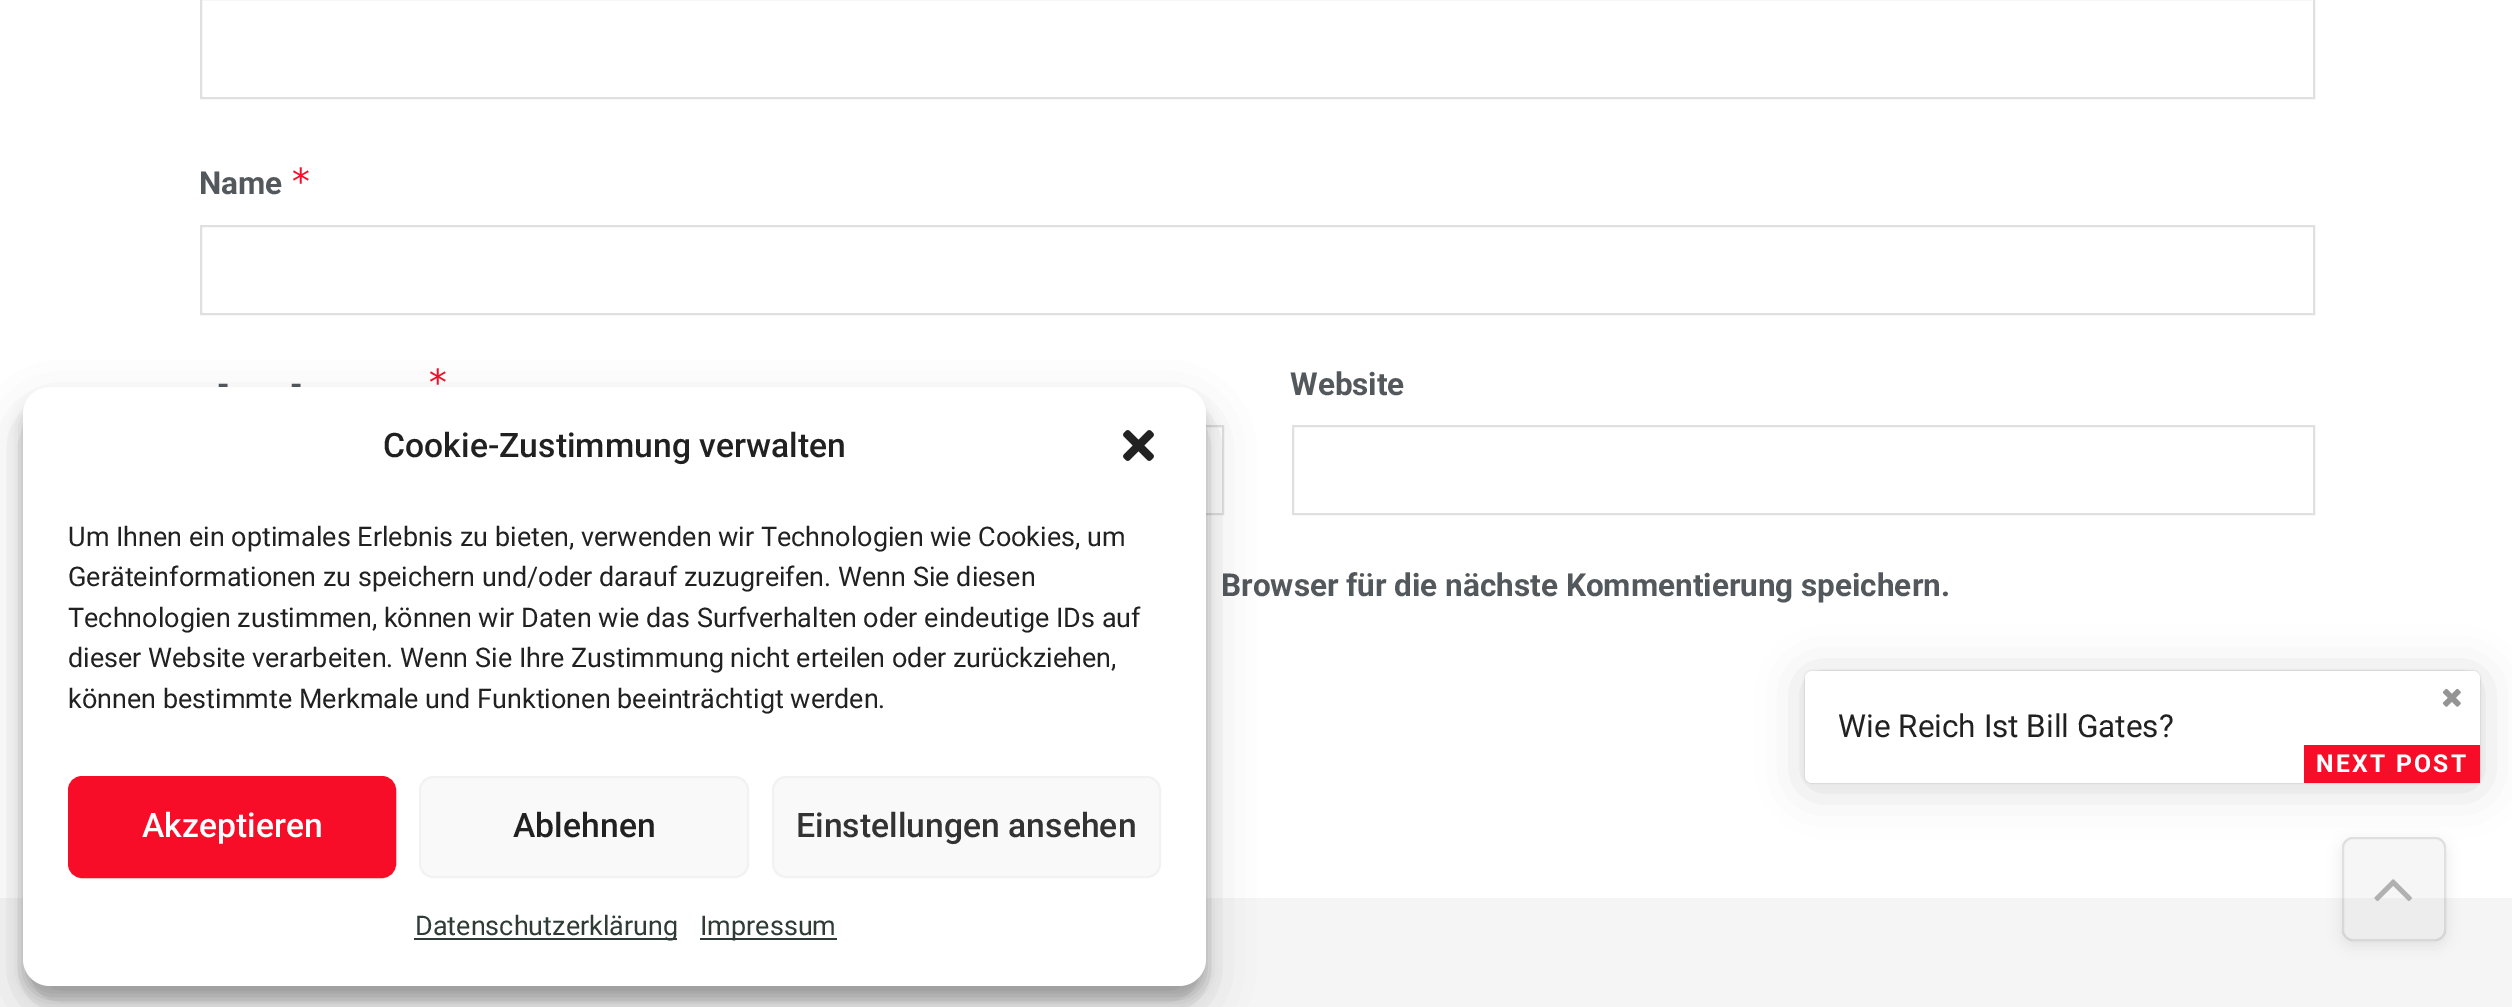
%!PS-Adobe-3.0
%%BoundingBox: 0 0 2512 1007
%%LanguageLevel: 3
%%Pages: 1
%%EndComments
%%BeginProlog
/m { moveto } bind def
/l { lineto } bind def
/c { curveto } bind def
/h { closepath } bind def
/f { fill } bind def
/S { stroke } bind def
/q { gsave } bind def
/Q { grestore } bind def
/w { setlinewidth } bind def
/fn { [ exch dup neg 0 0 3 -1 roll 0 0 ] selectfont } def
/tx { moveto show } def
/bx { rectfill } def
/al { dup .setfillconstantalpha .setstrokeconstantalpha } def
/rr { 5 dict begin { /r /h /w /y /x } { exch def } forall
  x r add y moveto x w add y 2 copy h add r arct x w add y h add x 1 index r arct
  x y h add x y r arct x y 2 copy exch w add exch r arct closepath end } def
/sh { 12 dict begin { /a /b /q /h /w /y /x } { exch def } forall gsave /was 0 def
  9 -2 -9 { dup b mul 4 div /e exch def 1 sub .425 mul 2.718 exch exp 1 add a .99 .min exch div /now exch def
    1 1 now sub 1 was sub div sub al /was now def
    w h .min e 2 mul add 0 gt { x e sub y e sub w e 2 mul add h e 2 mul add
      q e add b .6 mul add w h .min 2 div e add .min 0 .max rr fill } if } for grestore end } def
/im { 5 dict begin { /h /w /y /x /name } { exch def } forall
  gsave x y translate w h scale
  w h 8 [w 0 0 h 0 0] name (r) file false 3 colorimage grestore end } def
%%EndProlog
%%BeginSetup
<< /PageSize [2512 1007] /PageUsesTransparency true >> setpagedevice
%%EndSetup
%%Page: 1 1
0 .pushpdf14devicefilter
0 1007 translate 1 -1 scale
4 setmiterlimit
1 setgray
0 0 2512 1007 bx
0.878 setgray
2 w
201 -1 2113 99 rectstroke
/Roboto-Bold 31.5 fn
0.325 0.345 0.361 setrgbcolor
(Name) 199 194 tx
/DejaVuSansMono-Regular 36 fn
0.969 0.051 0.157 setrgbcolor
(*) 290 194 tx
0.878 setgray
201 226 2113 88 rectstroke
0.969 0.051 0.157 setrgbcolor
(*) 427 395 tx
/Roboto-Bold 31.5 fn
0.325 0.345 0.361 setrgbcolor
(-) 217 395 tx
(-) 290 395 tx
0.878 setgray
201 426 1022 88 rectstroke
0.325 0.345 0.361 setrgbcolor
(Website) 1290 395 tx
0.878 setgray
1293 426 1021 88 rectstroke
0.325 0.345 0.361 setrgbcolor
(Browser für die nächste Kommentierung speichern.) 1221 596 tx
0 setgray
1805 675 675 113 7 22.5 0.15 sh
1805 671 675 112 7 1 0.2 sh
1 setgray
1805 671 675 112 7 rr f
(image0.raw) 2442 688 19 19 im
/Roboto-Regular 31.5 fn
0.129 setgray
(Wie Reich Ist Bill Gates?) 1838 737 tx
0.969 0.051 0.157 setrgbcolor
2304 745 176 38 bx
/Roboto-Bold 24.75 fn
1 setgray
2316 772 m 2.25 0 (NEXT POST) ashow
0.961 setgray
0 898 2512 109 bx
q
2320 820 m 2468 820 l 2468 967 l 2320 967 l h 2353 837 m 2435 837 l 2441 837 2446 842 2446 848 c 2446 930 l 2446 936 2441 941 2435 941 c 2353 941 l 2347 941 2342 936 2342 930 c 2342 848 l 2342 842 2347 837 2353 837 c h eoclip newpath
0 setgray
2342 842 104 103 11 7 0.08 sh
Q
0.12 al
0.706 setgray
2342 837 104 104 11 rr f
0.09 al
0 setgray
2343 838 102 102 10 rr S
1 al
(image1.raw) 2374 879 38 23 im
23 401 1183 598 27 7 0.23 sh
23 410 1183 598 27 22.5 0.19 sh
1 setgray
23 387 1183 599 27 rr f
/Roboto-Medium 33.75 fn
0.129 setgray
(Cookie-Zustimmung verwalten) 383 457 tx
(image2.raw) 1123 430 31 31 im
/Roboto-Regular 27 fn
(Um Ihnen ein optimales Erlebnis zu bieten, verwenden wir Technologien wie Cookies, um) 68 546 tx
(Geräteinformationen zu speichern und/oder darauf zuzugreifen. Wenn Sie diesen) 68 586 tx
(Technologien zustimmen, können wir Daten wie das Surfverhalten oder eindeutige IDs auf) 68 627 tx
(dieser Website verarbeiten. Wenn Sie Ihre Zustimmung nicht erteilen oder zurückziehen,) 68 667 tx
(können bestimmte Merkmale und Funktionen beeinträchtigt werden.) 68 708 tx
0.969 0.051 0.157 setrgbcolor
69 777 326 100 13 rr q f Q
S
/Roboto-Medium 33.75 fn
1 setgray
(Akzeptieren) 142 837 tx
0.976 setgray
420 777 328 100 13 rr q f Q
0.949 setgray
S
0.129 setgray
(Ablehnen) 513 837 tx
0.976 setgray
773 777 387 100 13 rr q f Q
0.949 setgray
S
0.2 setgray
(Einstellungen ansehen) 796 837 tx
0.184 0.235 0.212 setrgbcolor
414 938 263 2 bx
/Roboto-Regular 27 fn
(Datenschutzerklärung) 415 935 tx
700 938 137 2 bx
(Impressum) 700 935 tx
.poppdf14devicefilter showpage
%%EOF
